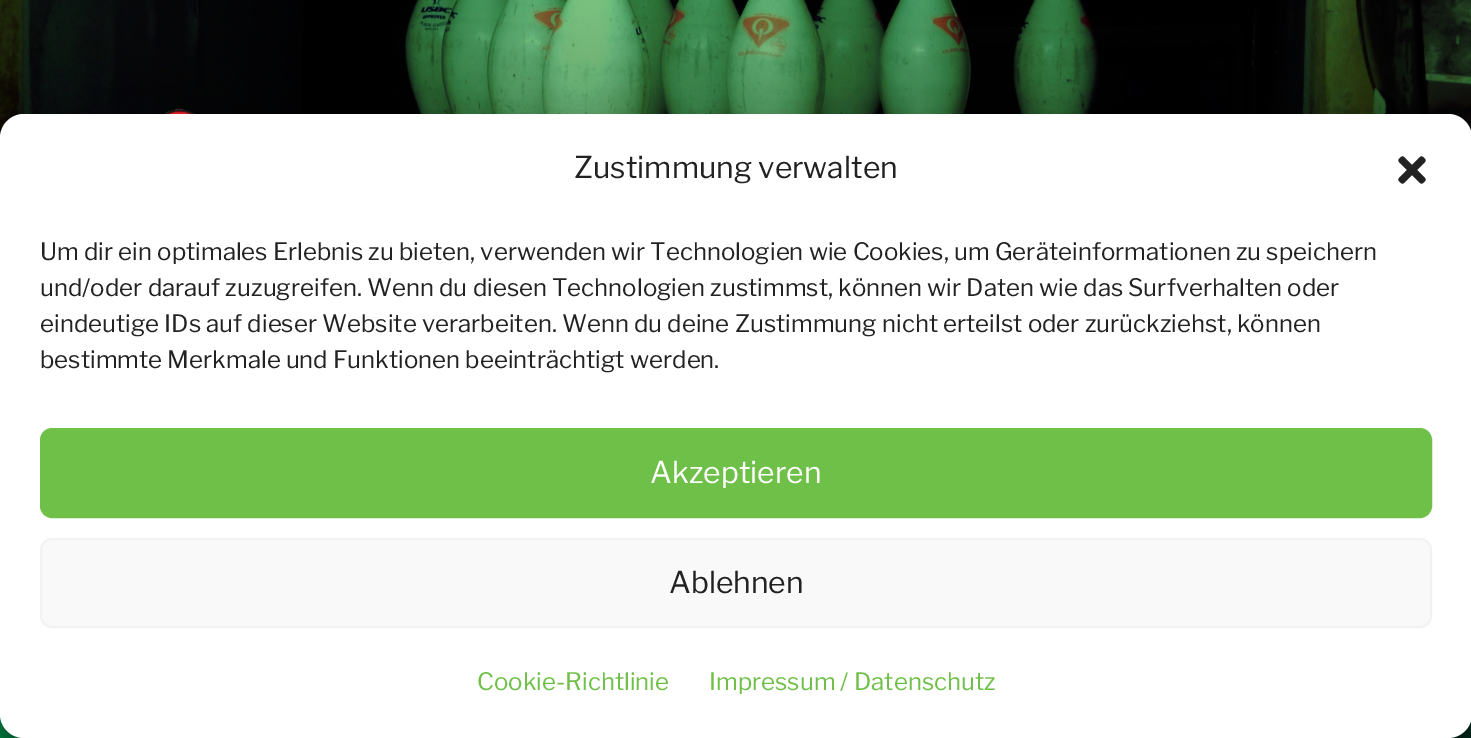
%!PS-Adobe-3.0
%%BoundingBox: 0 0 1471 738
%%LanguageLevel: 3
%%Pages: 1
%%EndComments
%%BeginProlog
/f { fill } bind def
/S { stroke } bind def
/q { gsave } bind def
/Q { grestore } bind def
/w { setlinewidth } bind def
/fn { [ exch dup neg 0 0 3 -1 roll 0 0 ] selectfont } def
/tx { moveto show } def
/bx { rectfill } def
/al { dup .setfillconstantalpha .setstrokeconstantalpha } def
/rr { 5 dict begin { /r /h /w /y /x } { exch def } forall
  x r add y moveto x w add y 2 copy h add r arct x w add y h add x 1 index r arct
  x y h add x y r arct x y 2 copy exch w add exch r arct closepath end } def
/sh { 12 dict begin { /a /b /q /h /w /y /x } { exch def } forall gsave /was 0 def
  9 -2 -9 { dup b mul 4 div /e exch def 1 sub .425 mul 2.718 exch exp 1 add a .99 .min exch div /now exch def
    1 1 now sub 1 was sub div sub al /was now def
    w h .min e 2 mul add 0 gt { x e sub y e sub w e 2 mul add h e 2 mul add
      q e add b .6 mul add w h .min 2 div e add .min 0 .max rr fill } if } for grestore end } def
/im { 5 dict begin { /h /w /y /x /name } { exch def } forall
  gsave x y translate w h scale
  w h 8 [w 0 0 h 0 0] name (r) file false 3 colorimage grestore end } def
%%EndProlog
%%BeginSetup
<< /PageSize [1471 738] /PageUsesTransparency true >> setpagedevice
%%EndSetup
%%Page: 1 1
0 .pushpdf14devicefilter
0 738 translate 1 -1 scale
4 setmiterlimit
1 setgray
0 0 1471 738 bx
(image0.raw) 0 0 1471 138 im
(image1.raw) 164 108 31 6 im
(image2.raw) 0 714 1471 24 im
0 setgray
0 126 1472 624 24 6 0.23 sh
0 134 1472 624 24 20 0.19 sh
1 setgray
0 114 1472 624 24 rr f
/LibreFranklin-Thin 30 fn
0.133 setgray
(Zustimmung verwalten) 574 178 tx
(image3.raw) 1398 156 28 28 im
/LibreFranklin-Thin 24 fn
(Um dir ein optimales Erlebnis zu bieten, verwenden wir Technologien wie Cookies, um Geräteinformationen zu speichern) 40 260 tx
(und/oder darauf zuzugreifen. Wenn du diesen Technologien zustimmst, können wir Daten wie das Surfverhalten oder) 40 296 tx
(eindeutige IDs auf dieser Website verarbeiten. Wenn du deine Zustimmung nicht erteilst oder zurückziehst, können) 40 332 tx
(bestimmte Merkmale und Funktionen beeinträchtigt werden.) 40 368 tx
0.435 0.753 0.282 setrgbcolor
41 429 1390 88 11 rr q f Q
2 w
S
/LibreFranklin-Thin 30 fn
1 setgray
(Akzeptieren) 650 483 tx
0.976 setgray
41 539 1390 88 11 rr q f Q
0.949 setgray
S
0.133 setgray
(Ablehnen) 669 593 tx
/LibreFranklin-Thin 24 fn
0.435 0.753 0.282 setrgbcolor
(Cookie-Richtlinie) 477 690 tx
(Impressum / Datenschutz) 709 690 tx
.poppdf14devicefilter showpage
%%EOF
